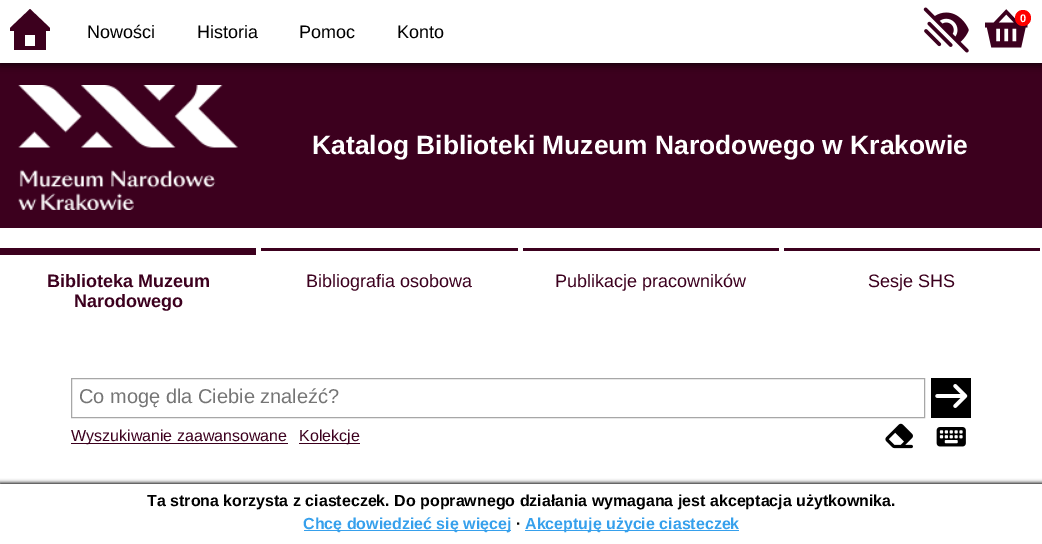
%!PS-Adobe-3.0
%%BoundingBox: 0 0 1042 544
%%LanguageLevel: 3
%%Pages: 1
%%EndComments
%%BeginProlog
/m { moveto } bind def
/l { lineto } bind def
/h { closepath } bind def
/f { fill } bind def
/fn { [ exch dup neg 0 0 3 -1 roll 0 0 ] selectfont } def
/tx { moveto show } def
/bx { rectfill } def
/al { dup .setfillconstantalpha .setstrokeconstantalpha } def
/ci { newpath 0 360 arc closepath } def
/rr { 5 dict begin { /r /h /w /y /x } { exch def } forall
  x r add y moveto x w add y 2 copy h add r arct x w add y h add x 1 index r arct
  x y h add x y r arct x y 2 copy exch w add exch r arct closepath end } def
/sh { 12 dict begin { /a /b /q /h /w /y /x } { exch def } forall gsave /was 0 def
  9 -2 -9 { dup b mul 4 div /e exch def 1 sub .425 mul 2.718 exch exp 1 add a .99 .min exch div /now exch def
    1 1 now sub 1 was sub div sub al /was now def
    w h .min e 2 mul add 0 gt { x e sub y e sub w e 2 mul add h e 2 mul add
      q e add b .6 mul add w h .min 2 div e add .min 0 .max rr fill } if } for grestore end } def
/im { 5 dict begin { /h /w /y /x /name } { exch def } forall
  gsave x y translate w h scale
  w h 8 [w 0 0 h 0 0] name (r) file false 3 colorimage grestore end } def
%%EndProlog
%%BeginSetup
<< /PageSize [1042 544] /PageUsesTransparency true >> setpagedevice
%%EndSetup
%%Page: 1 1
0 .pushpdf14devicefilter
0 544 translate 1 -1 scale
4 setmiterlimit
1 setgray
0 0 1042 544 bx
0.235 0 0.118 setrgbcolor
0 63 1042 165 bx
0 setgray
0 3 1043 62 0 4 0.65 sh
1 setgray
0 0 1042 63 bx
(image0.raw) 923 7 46 46 im
(image1.raw) 985 9 43 39 im
1 0 0 setrgbcolor
1023 18 8 ci f
/LiberationSans-Bold 11 fn
1 setgray
(0) 1020 22 tx
0.235 0 0.118 setrgbcolor
50 31 m 46 31 l 46 50 l 14 50 l 14 31 l 10 31 l 10 28 l 30 9 l 50 28 l h 35 46 m 35 35 l 25 35 l 25 46 l h f
/LiberationSans-Regular 18 fn
0 setgray
(Nowości) 87 38 tx
(Historia) 197 38 tx
(Pomoc) 299 38 tx
(Konto) 397 38 tx
(image2.raw) 18 85 220 125 im
/LiberationSans-Bold 26.4 fn
1 setgray
(Katalog Biblioteki Muzeum Narodowego w Krakowie) 312 154 tx
0.235 0 0.118 setrgbcolor
0 248 256 7 bx
/LiberationSans-Bold 18 fn
(Biblioteka Muzeum) 47 287 tx
(Narodowego) 74 307 tx
261 248 257 3 bx
/LiberationSans-Regular 18 fn
(Bibliografia osobowa) 306 287 tx
523 248 256 3 bx
(Publikacje pracowników) 555 287 tx
784 248 256 3 bx
(Sesje SHS) 868 287 tx
0.655 setgray
71.5 378.5 853 39 rectstroke
/LiberationSans-Regular 20 fn
0.459 setgray
(Co mogę dla Ciebie znaleźć?) 79 403 tx
0 setgray
931 378 40 40 bx
(image3.raw) 935 384 33 24 im
0.235 0 0.118 setrgbcolor
71 443 217 1 bx
/LiberationSans-Regular 16 fn
(Wyszukiwanie zaawansowane) 71 441 tx
299 443 61 1 bx
(Kolekcje) 299 441 tx
(image4.raw) 885 423 28 26 im
(image5.raw) 936 427 30 20 im
0 setgray
0 483 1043 61 0 2 1 sh
1 setgray
0 484 1042 60 bx
/LiberationSans-Bold 16 fn
0 setgray
(Ta strona korzysta z ciasteczek. Do poprawnego działania wymagana jest akceptacja użytkownika.) 147 506 tx
0.212 0.627 0.925 setrgbcolor
304 530 207 1 bx
(Chcę dowiedzieć się więcej) 303 529 tx
0 setgray
(∙) 516 529 tx
0.212 0.627 0.925 setrgbcolor
525 530 214 1 bx
(Akceptuję użycie ciasteczek) 525 529 tx
.poppdf14devicefilter showpage
%%EOF
